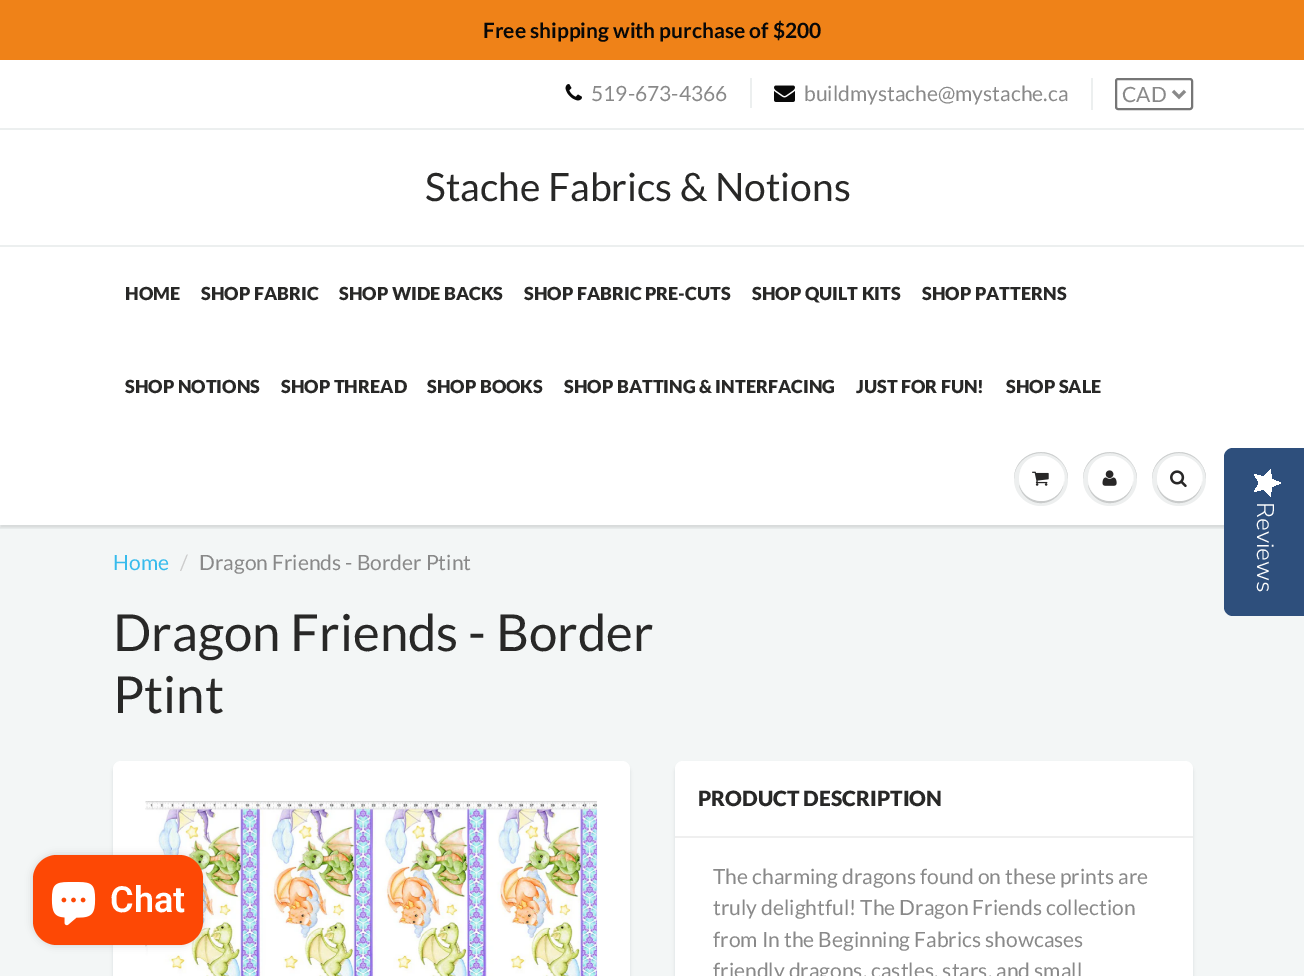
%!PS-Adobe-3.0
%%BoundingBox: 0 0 1304 976
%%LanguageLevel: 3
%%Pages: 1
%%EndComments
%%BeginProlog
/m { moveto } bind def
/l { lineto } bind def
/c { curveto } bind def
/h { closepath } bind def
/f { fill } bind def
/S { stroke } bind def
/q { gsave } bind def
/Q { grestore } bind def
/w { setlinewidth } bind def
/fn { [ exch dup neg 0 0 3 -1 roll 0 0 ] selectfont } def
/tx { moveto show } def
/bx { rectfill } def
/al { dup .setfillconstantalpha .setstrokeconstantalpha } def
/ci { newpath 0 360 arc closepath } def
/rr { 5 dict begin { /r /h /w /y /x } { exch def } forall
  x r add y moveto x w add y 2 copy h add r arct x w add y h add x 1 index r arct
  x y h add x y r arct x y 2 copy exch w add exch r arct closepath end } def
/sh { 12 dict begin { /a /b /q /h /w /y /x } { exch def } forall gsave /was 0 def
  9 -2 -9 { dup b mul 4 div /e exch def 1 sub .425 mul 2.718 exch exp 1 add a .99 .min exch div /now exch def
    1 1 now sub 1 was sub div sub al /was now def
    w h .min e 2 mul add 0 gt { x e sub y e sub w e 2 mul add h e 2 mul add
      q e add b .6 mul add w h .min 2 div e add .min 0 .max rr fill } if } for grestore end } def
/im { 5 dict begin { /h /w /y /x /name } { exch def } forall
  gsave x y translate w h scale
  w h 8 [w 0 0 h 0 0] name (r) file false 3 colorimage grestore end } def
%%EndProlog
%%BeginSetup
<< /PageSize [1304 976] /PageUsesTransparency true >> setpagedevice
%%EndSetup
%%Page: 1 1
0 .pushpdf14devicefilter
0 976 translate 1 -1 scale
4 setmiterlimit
1 setgray
0 0 1304 976 bx
0.937 0.51 0.094 setrgbcolor
0 0 1304 60 bx
/Lato-Bold 21 fn
0.031 setgray
(Free shipping with purchase of $200) 483 38 tx
(image0.raw) 565 84 17 17 im
/Lato-Regular 21 fn
0.537 setgray
(519-673-4366) 591 101 tx
0.925 0.937 0.937 setrgbcolor
750 78 2 30 bx
(image1.raw) 774 85 21 17 im
0.537 setgray
(buildmystache@mystache.ca) 804 101 tx
0.925 0.937 0.937 setrgbcolor
1091 78 2 32 bx
0.463 setgray
2 w
1116 79 76 30 2 rr S
0.537 setgray
3 w
1173 91 m 1179 97 l 1185 91 l S
(CAD) 1122 102 tx
0.925 0.937 0.937 setrgbcolor
0 128 1304 2 bx
/Lato-Regular 39 fn
0.157 0.157 0.153 setrgbcolor
(Stache Fabrics & Notions) 425 201 tx
0.953 0.965 0.965 setrgbcolor
0 525 1304 451 bx
q
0 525 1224 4 rectclip
0.043 0.098 0.11 setrgbcolor
0 248 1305 280 0 1.5 0.12 sh
Q
0.925 0.937 0.937 setrgbcolor
0 245 1304 2 bx
/Lato-Black 18 fn
0.157 0.157 0.153 setrgbcolor
(HOME) 125 300 tx
(SHOP FABRIC) 201 300 tx
(SHOP WIDE BACKS) 339 300 tx
(SHOP FABRIC PRE-CUTS) 524 300 tx
(SHOP QUILT KITS) 752 300 tx
(SHOP PATTERNS) 922 300 tx
(SHOP NOTIONS) 125 393 tx
(SHOP THREAD) 281 393 tx
(SHOP BOOKS) 427 393 tx
(SHOP BATTING & INTERFACING) 564 393 tx
(JUST FOR FUN!) 856 393 tx
(SHOP SALE) 1006 393 tx
0.929 0.937 0.937 setrgbcolor
1041 479 27 ci f
0.788 0.796 0.796 setrgbcolor
1041 453 m 1056 453 1068 465 1068 479 c 1068 474 1066 468 1063 464 c 1048 442 1014 453 1014 479 c 1014 465 1026 453 1041 453 c h f
1019 485 m 1020 490 1023 495 1027 498 c 1044 512 1069 495 1063 474 c 1069 502 1028 512 1019 485 c h f
1 setgray
1041.5 478.5 22.5 ci f
1041 458 m 1059 458 1066 473 1063 486 c 1073 457 1028 443 1020 472 c 1023 464 1030 458 1041 458 c h f
(image2.raw) 1032 471 17 15 im
0.929 0.937 0.937 setrgbcolor
1110 479 27 ci f
0.788 0.796 0.796 setrgbcolor
1110 453 m 1125 453 1137 465 1137 479 c 1137 474 1135 468 1132 464 c 1117 442 1083 453 1083 479 c 1083 465 1095 453 1110 453 c h f
1088 485 m 1089 490 1092 495 1096 498 c 1113 512 1138 495 1132 474 c 1138 502 1097 512 1088 485 c h f
1 setgray
1110.5 478.5 22.5 ci f
1110 458 m 1128 458 1135 473 1132 486 c 1142 457 1097 443 1089 472 c 1092 464 1099 458 1110 458 c h f
(image3.raw) 1102 470 15 16 im
0.929 0.937 0.937 setrgbcolor
1179 479 27 ci f
0.788 0.796 0.796 setrgbcolor
1179 453 m 1194 453 1206 465 1206 479 c 1206 474 1204 468 1201 464 c 1186 442 1152 453 1152 479 c 1152 465 1164 453 1179 453 c h f
1157 485 m 1158 490 1161 495 1165 498 c 1182 512 1207 495 1201 474 c 1207 502 1166 512 1157 485 c h f
1 setgray
1179.5 478.5 22.5 ci f
1179 458 m 1197 458 1204 473 1201 486 c 1211 457 1166 443 1158 472 c 1161 464 1168 458 1179 458 c h f
(image4.raw) 1170 470 17 18 im
/Lato-Regular 21 fn
0.216 0.733 0.925 setrgbcolor
(Home) 113 570 tx
0.8 setgray
(/) 180 570 tx
0.537 setgray
(Dragon Friends - Border Ptint) 199 570 tx
/Lato-Regular 51 fn
0.157 0.157 0.153 setrgbcolor
(Dragon Friends - Border) 113 651 tx
(Ptint) 113 713 tx
0.043 0.098 0.11 setrgbcolor
113 764 517 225 8 1.5 0.1 sh
1 setgray
113 761 517 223 8 rr f
(image5.raw) 145 801 453 175 im
0.043 0.098 0.11 setrgbcolor
675 764 518 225 8 1.5 0.1 sh
1 setgray
675 761 518 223 8 rr f
0.937 setgray
675 836 518 2 bx
/Lato-Black 21 fn
0.157 0.157 0.153 setrgbcolor
(PRODUCT DESCRIPTION) 698 806 tx
/Lato-Regular 21 fn
0.537 setgray
(The charming dragons found on these prints are) 713 884 tx
(truly delightful! The Dragon Friends collection) 713 915 tx
(from In the Beginning Fabrics showcases) 713 947 tx
(friendly dragons, castles, stars, and small) 713 978 tx
0.18 0.31 0.486 setrgbcolor
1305 448 m 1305 616 l 1233 616 l 1228 616 1224 612 1224 607 c 1224 457 l 1224 452 1228 448 1233 448 c h f
q 1259.5 483 m 1254.5 491.5 l 1264 489 l 1270.5 496.5 l 1271.5 487 l 1280.5 483 l 1271.5 479 l 1270.5 469.5 l 1264 477 l 1254.5 474.5 l h clip newpath
<< /ShadingType 2 /ColorSpace /DeviceRGB /Coords [1280 469 1280 496] /Extend [true true] /Function << /FunctionType 2 /Domain [0 1] /C0 [1 1 1] /C1 [1 1 1] /N 1 >> >> shfill Q
/NunitoSans-Light 24 fn
1 setgray
q 1257 502 translate 90 rotate 0 0 m (Reviews) show Q
0 setgray
33 855 170 90 24 4 0.15 sh
0.992 0.282 0.02 setrgbcolor
33 855 170 90 24 rr f
(image6.raw) 51 882 45 44 im
/Roboto-SemiBold 36 fn
1 setgray
(Chat) 110 912 tx
.poppdf14devicefilter showpage
%%EOF
